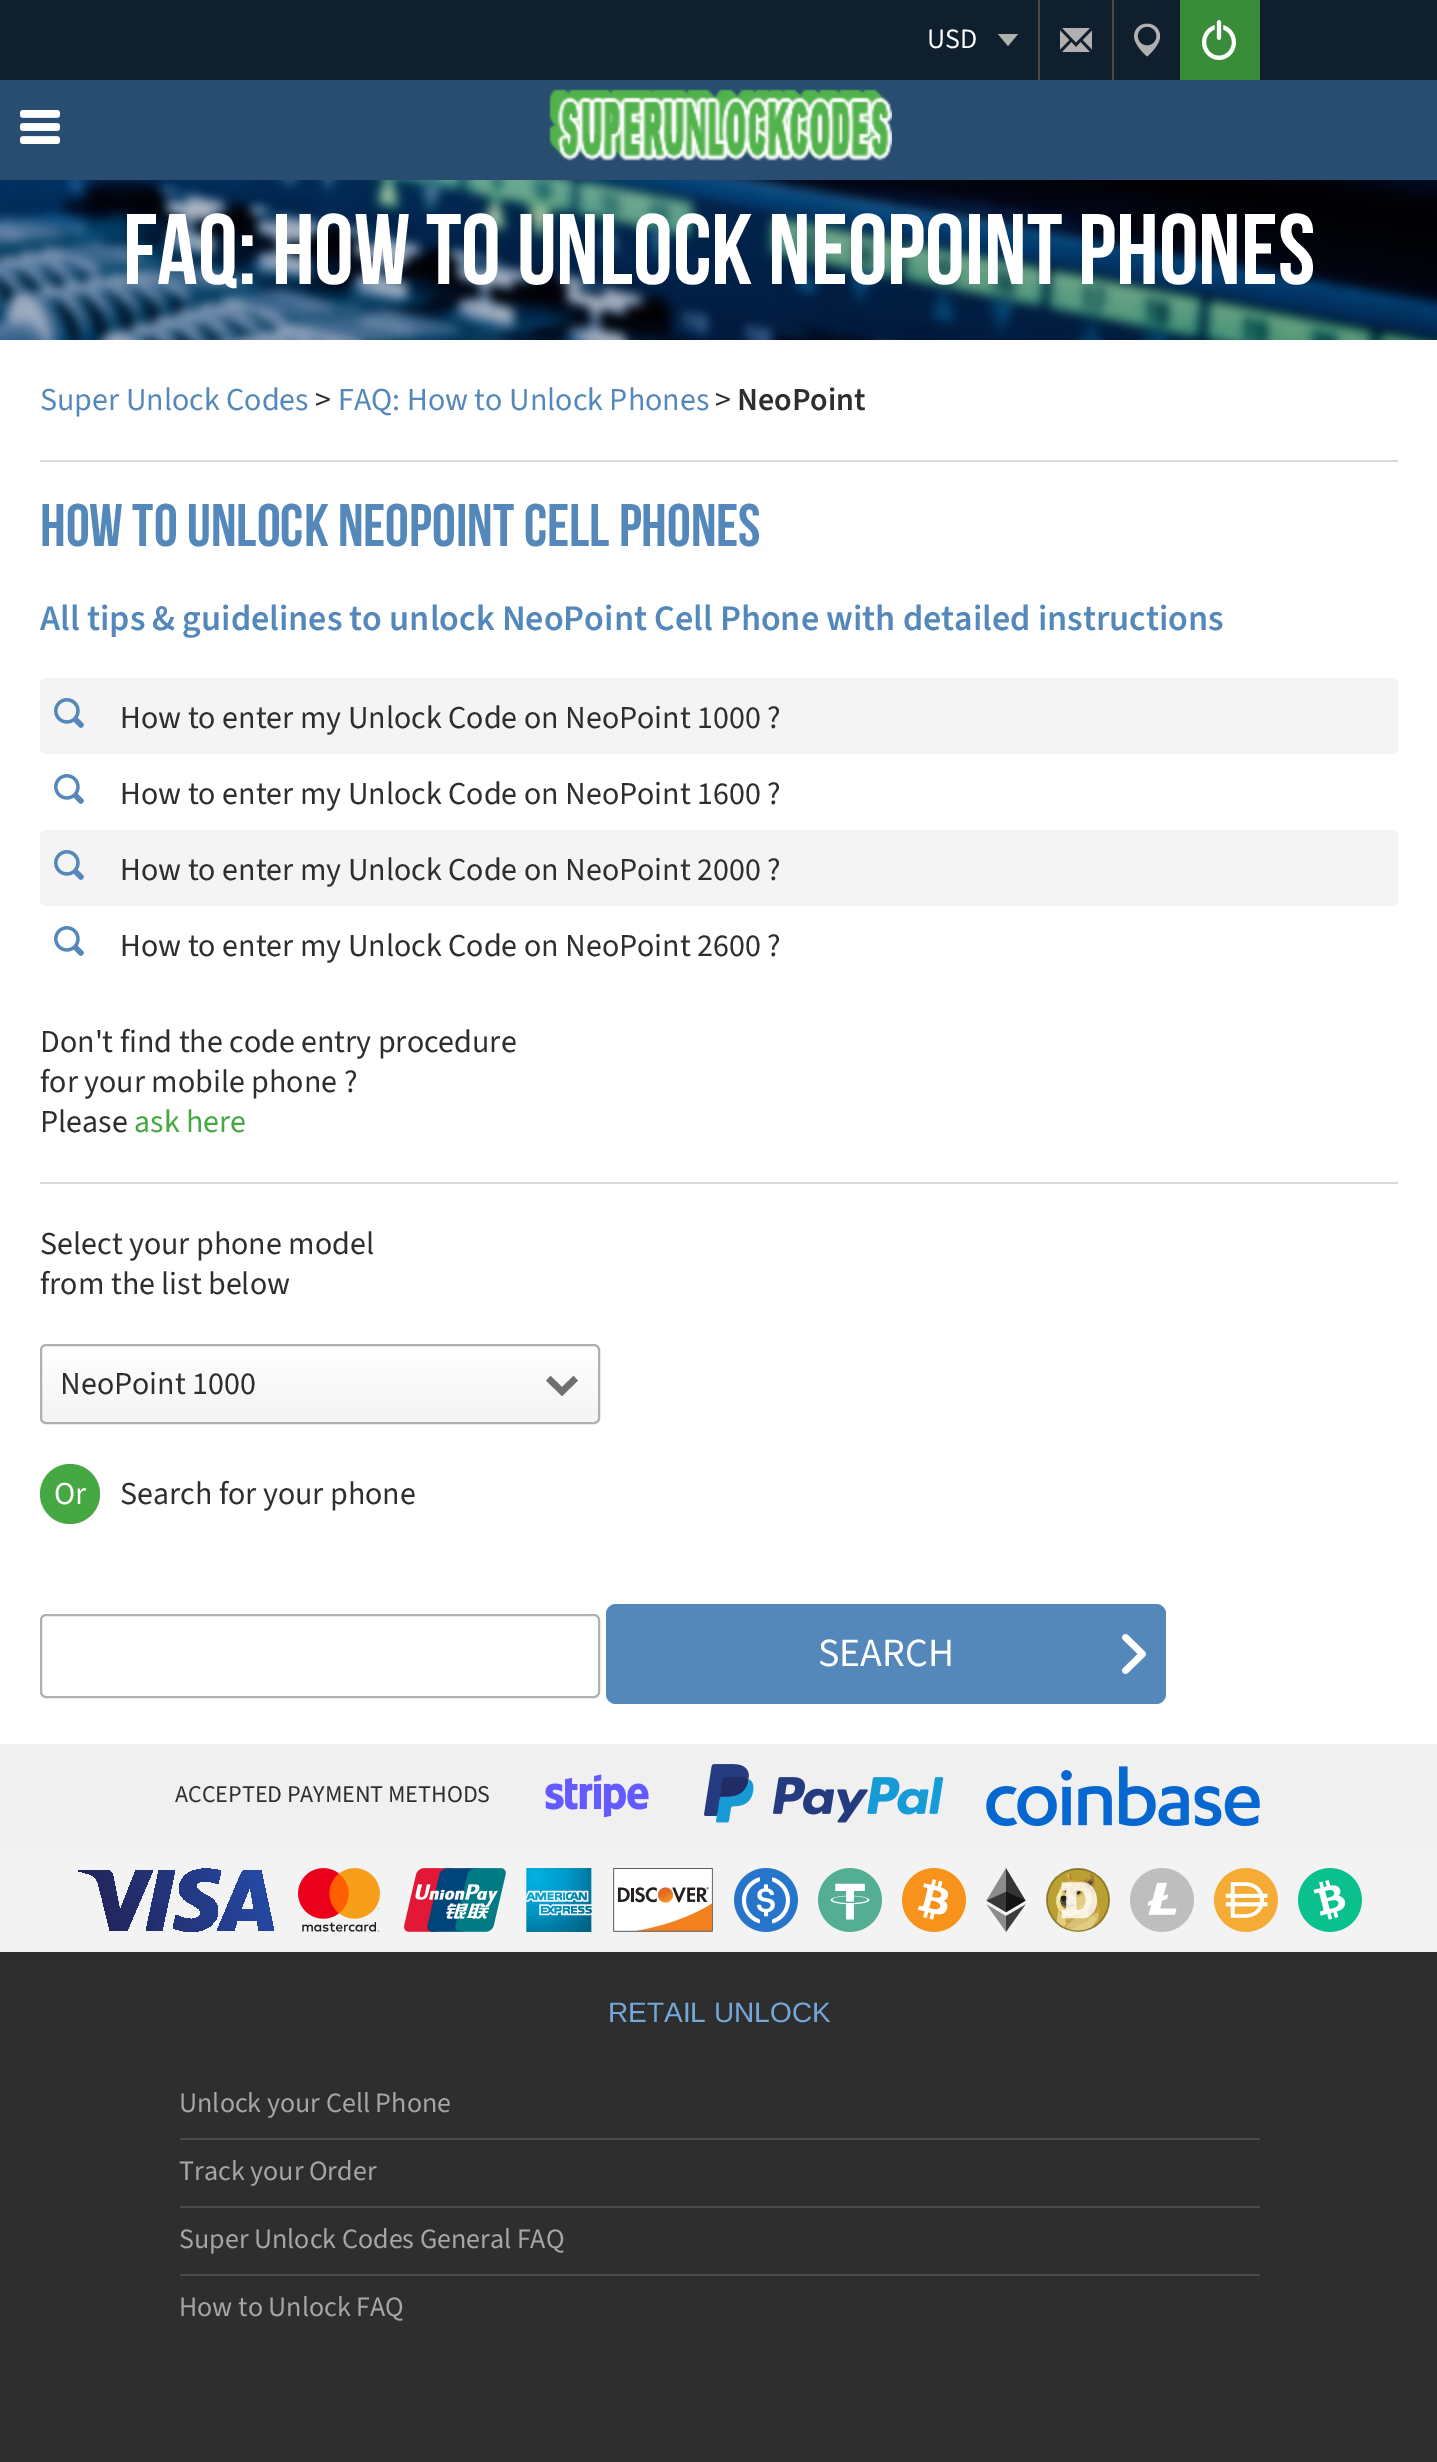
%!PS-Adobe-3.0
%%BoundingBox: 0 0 1437 2462
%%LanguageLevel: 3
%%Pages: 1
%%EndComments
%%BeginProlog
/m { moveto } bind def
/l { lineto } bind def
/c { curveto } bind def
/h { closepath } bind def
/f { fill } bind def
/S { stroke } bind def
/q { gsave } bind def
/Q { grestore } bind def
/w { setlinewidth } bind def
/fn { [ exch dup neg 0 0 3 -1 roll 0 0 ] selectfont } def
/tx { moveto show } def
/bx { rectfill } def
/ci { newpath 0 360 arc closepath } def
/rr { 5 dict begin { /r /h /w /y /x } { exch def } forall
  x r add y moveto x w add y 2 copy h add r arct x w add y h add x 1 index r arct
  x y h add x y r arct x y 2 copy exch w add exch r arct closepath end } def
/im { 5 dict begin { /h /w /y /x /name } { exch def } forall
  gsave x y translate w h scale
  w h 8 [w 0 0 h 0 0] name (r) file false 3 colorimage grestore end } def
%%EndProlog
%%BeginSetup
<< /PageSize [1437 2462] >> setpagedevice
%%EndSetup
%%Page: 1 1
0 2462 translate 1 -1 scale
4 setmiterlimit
1 setgray
0 0 1437 2462 bx
0.161 0.302 0.439 setrgbcolor
0 80 1437 100 bx
0.063 0.122 0.176 setrgbcolor
0 0 1437 80 bx
/SourceSans3-Regular 28 fn
1 setgray
(USD) 927 48 tx
0.69 setgray
1008 46 m 1018 34 l 998 34 l h f
0.29 setgray
1038 0 2 80 bx
(image0.raw) 1060 28 32 24 im
1112 0 2 80 bx
(image1.raw) 1134 23 26 34 im
0.227 0.553 0.22 setrgbcolor
1180 0 80 80 bx
(image2.raw) 1202 20 34 40 im
(image3.raw) 20 110 40 34 im
(image4.raw) 549 89 343 72 im
(image5.raw) 0 180 1437 160 im
/BebasNeue-Bold 100 fn
1 setgray
(FAQ: How to Unlock NeoPoint Phones) 123 284 tx
/SourceSans3-Regular 32 fn
0.329 0.533 0.729 setrgbcolor
(Super Unlock Codes) 40 410 tx
0.18 setgray
(>) 315 410 tx
0.329 0.533 0.729 setrgbcolor
(FAQ: How to Unlock Phones) 338 410 tx
0.18 setgray
(>) 715 410 tx
/SourceSans3-SemiBold 32 fn
(NeoPoint) 737 410 tx
0.851 setgray
40 460 1358 2 bx
/BebasNeue-Bold 60 fn
0.329 0.533 0.729 setrgbcolor
(How to unlock NeoPoint cell phones) 40 546 tx
/SourceSans3-SemiBold 36 fn
(All tips & guidelines to unlock NeoPoint Cell Phone with detailed instructions) 40 630 tx
0.957 setgray
40 678 1358 76 6 rr f
(image6.raw) 54 698 30 30 im
/SourceSans3-Regular 32 fn
0.18 setgray
(How to enter my Unlock Code on NeoPoint 1000 ?) 120 728 tx
(image7.raw) 54 774 30 30 im
(How to enter my Unlock Code on NeoPoint 1600 ?) 120 804 tx
0.957 setgray
40 830 1358 76 6 rr f
(image6.raw) 54 850 30 30 im
0.18 setgray
(How to enter my Unlock Code on NeoPoint 2000 ?) 120 880 tx
(image7.raw) 54 926 30 30 im
(How to enter my Unlock Code on NeoPoint 2600 ?) 120 956 tx
(Don't find the code entry procedure) 40 1052 tx
(for your mobile phone ?) 40 1092 tx
(Please) 40 1132 tx
0.271 0.659 0.263 setrgbcolor
(ask here) 134 1132 tx
0.851 setgray
40 1182 1358 2 bx
0.18 setgray
(Select your phone model) 40 1254 tx
(from the list below) 40 1294 tx
q
40 1344 560 80 6 rr clip newpath
q 40 1346 m 600 1346 l 600 1422 l 40 1422 l h clip newpath
<< /ShadingType 2 /ColorSpace /DeviceRGB /Coords [320 1346 320 1422] /Extend [true true] /Function << /FunctionType 2 /Domain [0 1] /C0 [1 1 1] /C1 [0.957 0.957 0.957] /N 1 >> >> shfill Q
Q
0.69 setgray
2 w
41 1345 558 78 5 rr S
0.18 setgray
(NeoPoint 1000) 60 1394 tx
0.435 setgray
546 1380.5 m 562 1396 l 578 1380.5 l 573.5 1376 l 562 1387 l 550.5 1376 l h f
0.271 0.659 0.263 setrgbcolor
70 1494 30 ci f
1 setgray
(Or) 54 1504 tx
0.18 setgray
(Search for your phone) 120 1504 tx
0.69 setgray
41 1615 558 82 5 rr S
0.329 0.533 0.729 setrgbcolor
606 1604 560 100 10 rr f
(image8.raw) 1122 1634 24 40 im
/SourceSans3-Regular 40 fn
1 setgray
(SEARCH) 818 1666 tx
0.18 setgray
0 1952 1437 510 bx
0.941 setgray
0 1744 1437 104 bx
/SourceSans3-Regular 24 fn
0.18 setgray
(ACCEPTED PAYMENT METHODS) 175 1802 tx
(image9.raw) 545 1774 104 44 im
(image10.raw) 704 1764 240 59 im
(image11.raw) 986 1766 274 61 im
0.953 setgray
0 1848 1437 104 bx
q 179 1889 m 180 1868 206 1866 221 1871 c 218 1884 l 211 1881 205 1881 202 1881 c 198 1882 196 1884 196 1886 c 196 1889 199 1891 204 1894 c 210 1897 218 1901 218 1911 c 218 1923 207 1932 190 1932 c 183 1931 177 1930 173 1928 c 176 1915 l 180 1917 184 1919 192 1919 c 196 1919 201 1917 201 1913 c 201 1910 199 1908 193 1905 c 187 1902 179 1897 179 1889 c h 136 1870 m 153 1870 l 127 1931 l 110 1931 l 102 1898 l 96 1877 100 1876 78 1871 c 79 1870 l 106 1870 l 109 1870 112 1872 113 1876 c 120 1911 l h 159 1870 m 175 1870 l 162 1931 l 146 1931 l h 247 1870 m 261 1870 l 274 1931 l 259 1931 l 257 1921 l 237 1921 l 234 1931 l 217 1931 l 241 1874 l 242 1871 244 1870 247 1870 c h 250 1886 m 241 1909 l 254 1909 l h eoclip newpath
<< /ShadingType 2 /ColorSpace /DeviceRGB /Coords [96 1930 261 1869] /Extend [true true] /Function << /FunctionType 2 /Domain [0 1] /C0 [0.133 0.137 0.341] /C1 [0.145 0.29 0.647] /N 1 >> >> shfill Q
(image12.raw) 298 1868 82 64 im
(image13.raw) 404 1868 102 64 im
(image14.raw) 526 1868 66 64 im
(image15.raw) 613 1868 100 64 im
(image16.raw) 734 1868 64 64 im
(image17.raw) 818 1868 64 64 im
(image18.raw) 902 1868 64 64 im
(image19.raw) 986 1868 40 64 im
(image20.raw) 1046 1868 64 64 im
(image21.raw) 1130 1868 64 64 im
(image22.raw) 1214 1868 64 64 im
(image23.raw) 1298 1868 64 64 im
/LiberationSans-Regular 28 fn
0.455 0.659 0.855 setrgbcolor
(RETAIL UNLOCK) 608 2022 tx
/SourceSans3-Regular 28 fn
0.651 setgray
(Unlock your Cell Phone) 179 2112 tx
0.29 setgray
180 2138 1080 2 bx
0.651 setgray
(Track your Order) 179 2180 tx
0.29 setgray
180 2206 1080 2 bx
0.651 setgray
(Super Unlock Codes General FAQ) 179 2248 tx
0.29 setgray
180 2274 1080 2 bx
0.651 setgray
(How to Unlock FAQ) 179 2316 tx
showpage
%%EOF
